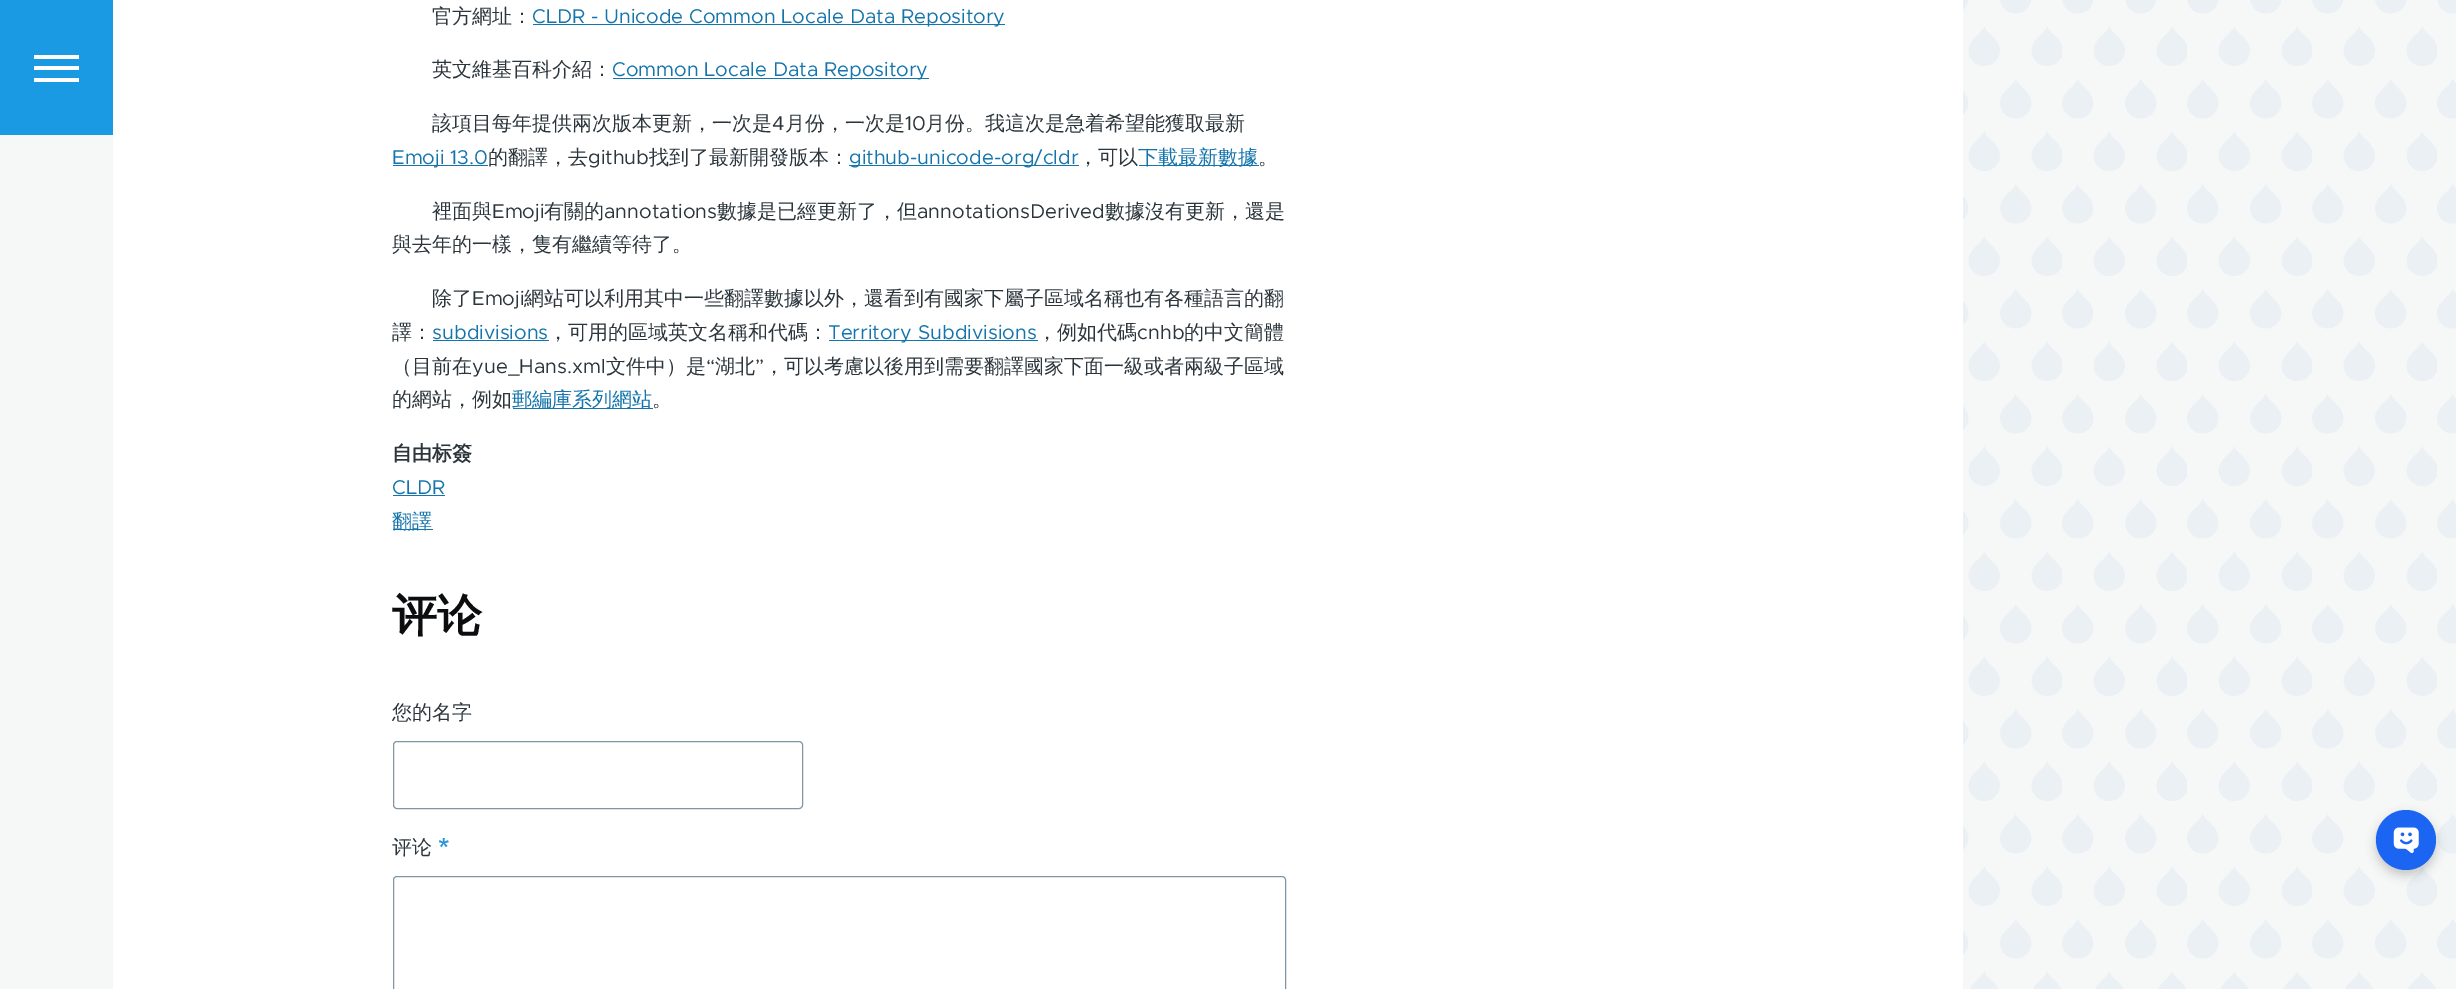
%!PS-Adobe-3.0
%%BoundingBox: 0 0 2456 989
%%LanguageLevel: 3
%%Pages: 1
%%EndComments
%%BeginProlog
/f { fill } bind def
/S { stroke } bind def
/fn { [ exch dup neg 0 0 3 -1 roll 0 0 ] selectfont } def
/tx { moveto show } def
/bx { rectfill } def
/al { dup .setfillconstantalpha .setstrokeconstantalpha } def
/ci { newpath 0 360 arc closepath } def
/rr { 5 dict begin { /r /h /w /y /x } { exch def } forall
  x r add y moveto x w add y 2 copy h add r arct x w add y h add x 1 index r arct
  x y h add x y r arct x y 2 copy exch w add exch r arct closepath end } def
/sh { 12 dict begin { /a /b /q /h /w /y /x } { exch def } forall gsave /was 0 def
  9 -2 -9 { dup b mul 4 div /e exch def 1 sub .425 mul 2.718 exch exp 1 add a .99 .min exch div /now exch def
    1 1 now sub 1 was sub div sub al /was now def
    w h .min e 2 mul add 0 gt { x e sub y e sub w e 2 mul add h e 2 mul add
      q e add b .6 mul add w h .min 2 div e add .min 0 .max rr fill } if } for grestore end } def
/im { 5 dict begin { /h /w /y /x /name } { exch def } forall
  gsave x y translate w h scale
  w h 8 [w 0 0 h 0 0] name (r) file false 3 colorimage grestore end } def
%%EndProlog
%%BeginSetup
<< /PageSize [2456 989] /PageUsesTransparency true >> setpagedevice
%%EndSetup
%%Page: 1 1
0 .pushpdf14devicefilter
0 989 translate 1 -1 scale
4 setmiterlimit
0.965 0.973 0.973 setrgbcolor
0 0 2456 989 bx
(image0.raw) 1963 0 493 989 im
1 setgray
113 0 1850 989 bx
0.106 0.604 0.894 setrgbcolor
0 0 113 135 bx
1 setgray
34 55 45 4 bx
34 66 45 4 bx
34 78 45 4 bx
/WenQuanYiZenHei-Medium 20 fn
0.169 0.208 0.231 setrgbcolor
(官方網址：) 432 23 tx
0.078 0.459 0.678 setrgbcolor
533 24 472 1 bx
/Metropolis-Regular 20 fn
(CLDR - Unicode Common Locale Data Repository) 532 23 tx
/WenQuanYiZenHei-Medium 20 fn
0.169 0.208 0.231 setrgbcolor
(英文維基百科介紹：) 432 76 tx
0.078 0.459 0.678 setrgbcolor
613 78 316 1 bx
/Metropolis-Regular 20 fn
(Common Locale Data Repository) 612 76 tx
/WenQuanYiZenHei-Medium 20 fn
0.169 0.208 0.231 setrgbcolor
(該項目每年提供兩次版本更新，一次是) 432 130 tx
/Metropolis-Regular 20 fn
(4) 772 130 tx
/WenQuanYiZenHei-Medium 20 fn
(月份，一次是) 785 130 tx
/Metropolis-Regular 20 fn
(10) 905 130 tx
/WenQuanYiZenHei-Medium 20 fn
(月份。我這次是急着希望能獲取最新) 925 130 tx
0.078 0.459 0.678 setrgbcolor
393 165 95 1 bx
/Metropolis-Regular 20 fn
(Emoji 13.0) 392 164 tx
/WenQuanYiZenHei-Medium 20 fn
0.169 0.208 0.231 setrgbcolor
(的翻譯，去) 488 164 tx
/Metropolis-Regular 20 fn
(github) 588 164 tx
/WenQuanYiZenHei-Medium 20 fn
(找到了最新開發版本：) 649 164 tx
0.078 0.459 0.678 setrgbcolor
849 165 230 1 bx
/Metropolis-Regular 20 fn
(github-unicode-org/cldr) 849 164 tx
/WenQuanYiZenHei-Medium 20 fn
0.169 0.208 0.231 setrgbcolor
(，可以) 1078 164 tx
0.078 0.459 0.678 setrgbcolor
1139 165 120 1 bx
(下載最新數據) 1138 164 tx
0.169 0.208 0.231 setrgbcolor
(。) 1258 164 tx
(裡面與) 432 218 tx
/Metropolis-Regular 20 fn
(Emoji) 492 218 tx
/WenQuanYiZenHei-Medium 20 fn
(有關的) 544 218 tx
/Metropolis-Regular 20 fn
(annotations) 604 218 tx
/WenQuanYiZenHei-Medium 20 fn
(數據是已經更新了，但) 717 218 tx
/Metropolis-Regular 20 fn
(annotationsDerived) 917 218 tx
/WenQuanYiZenHei-Medium 20 fn
(數據沒有更新，還是) 1105 218 tx
(與去年的一樣，隻有繼續等待了。) 392 251 tx
(除了) 432 305 tx
/Metropolis-Regular 20 fn
(Emoji) 472 305 tx
/WenQuanYiZenHei-Medium 20 fn
(網站可以利用其中一些翻譯數據以外，還看到有國家下屬子區域名稱也有各種語言的翻) 524 305 tx
(譯：) 392 339 tx
/Metropolis-Regular 20 fn
0.078 0.459 0.678 setrgbcolor
(subdivisions) 432 339 tx
433 340 116 1 bx
/WenQuanYiZenHei-Medium 20 fn
0.169 0.208 0.231 setrgbcolor
(，可用的區域英文名稱和代碼：) 548 339 tx
0.078 0.459 0.678 setrgbcolor
829 340 209 1 bx
/Metropolis-Regular 20 fn
(Territory Subdivisions) 828 339 tx
/WenQuanYiZenHei-Medium 20 fn
0.169 0.208 0.231 setrgbcolor
(，例如代碼) 1037 339 tx
/Metropolis-Regular 20 fn
(cnhb) 1137 339 tx
/WenQuanYiZenHei-Medium 20 fn
(的中文簡體) 1184 339 tx
(（目前在) 392 373 tx
/Metropolis-Regular 20 fn
(yue_Hans.xml) 472 373 tx
/WenQuanYiZenHei-Medium 20 fn
(文件中）是) 606 373 tx
/Metropolis-Regular 20 fn
(“) 706 373 tx
/WenQuanYiZenHei-Medium 20 fn
(湖北) 715 373 tx
/Metropolis-Regular 20 fn
(”) 755 373 tx
/WenQuanYiZenHei-Medium 20 fn
(，可以考慮以後用到需要翻譯國家下面一級或者兩級子區域) 764 373 tx
(的網站，例如) 392 406 tx
0.078 0.459 0.678 setrgbcolor
513 408 140 1 bx
(郵編庫系列網站) 512 406 tx
0.169 0.208 0.231 setrgbcolor
(。) 652 406 tx
/WenQuanYiZenHei-Bold 20 fn
(自由标簽) 392 460 tx
/Metropolis-Regular 20 fn
0.078 0.459 0.678 setrgbcolor
(CLDR) 392 494 tx
393 495 52 1 bx
393 529 40 1 bx
/WenQuanYiZenHei-Medium 20 fn
(翻譯) 392 528 tx
/WenQuanYiZenHei-Bold 45 fn
0.043 0.051 0.059 setrgbcolor
(评论) 392 631 tx
/WenQuanYiZenHei-Medium 20 fn
0.169 0.208 0.231 setrgbcolor
(您的名字) 392 719 tx
0.506 0.588 0.635 setrgbcolor
393.5 741.5 409 67 3.5 rr S
0.169 0.208 0.231 setrgbcolor
(评论) 392 854 tx
(image1.raw) 439 838 10 10 im
0.506 0.588 0.635 setrgbcolor
393.5 876.5 892 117 3.5 rr S
0 setgray
2376 815 60 60 30 5 0.2 sh
0.11 0.392 0.949 setrgbcolor
2406 840 30 ci f
(image2.raw) 2393 827 26 27 im
.poppdf14devicefilter showpage
%%EOF
